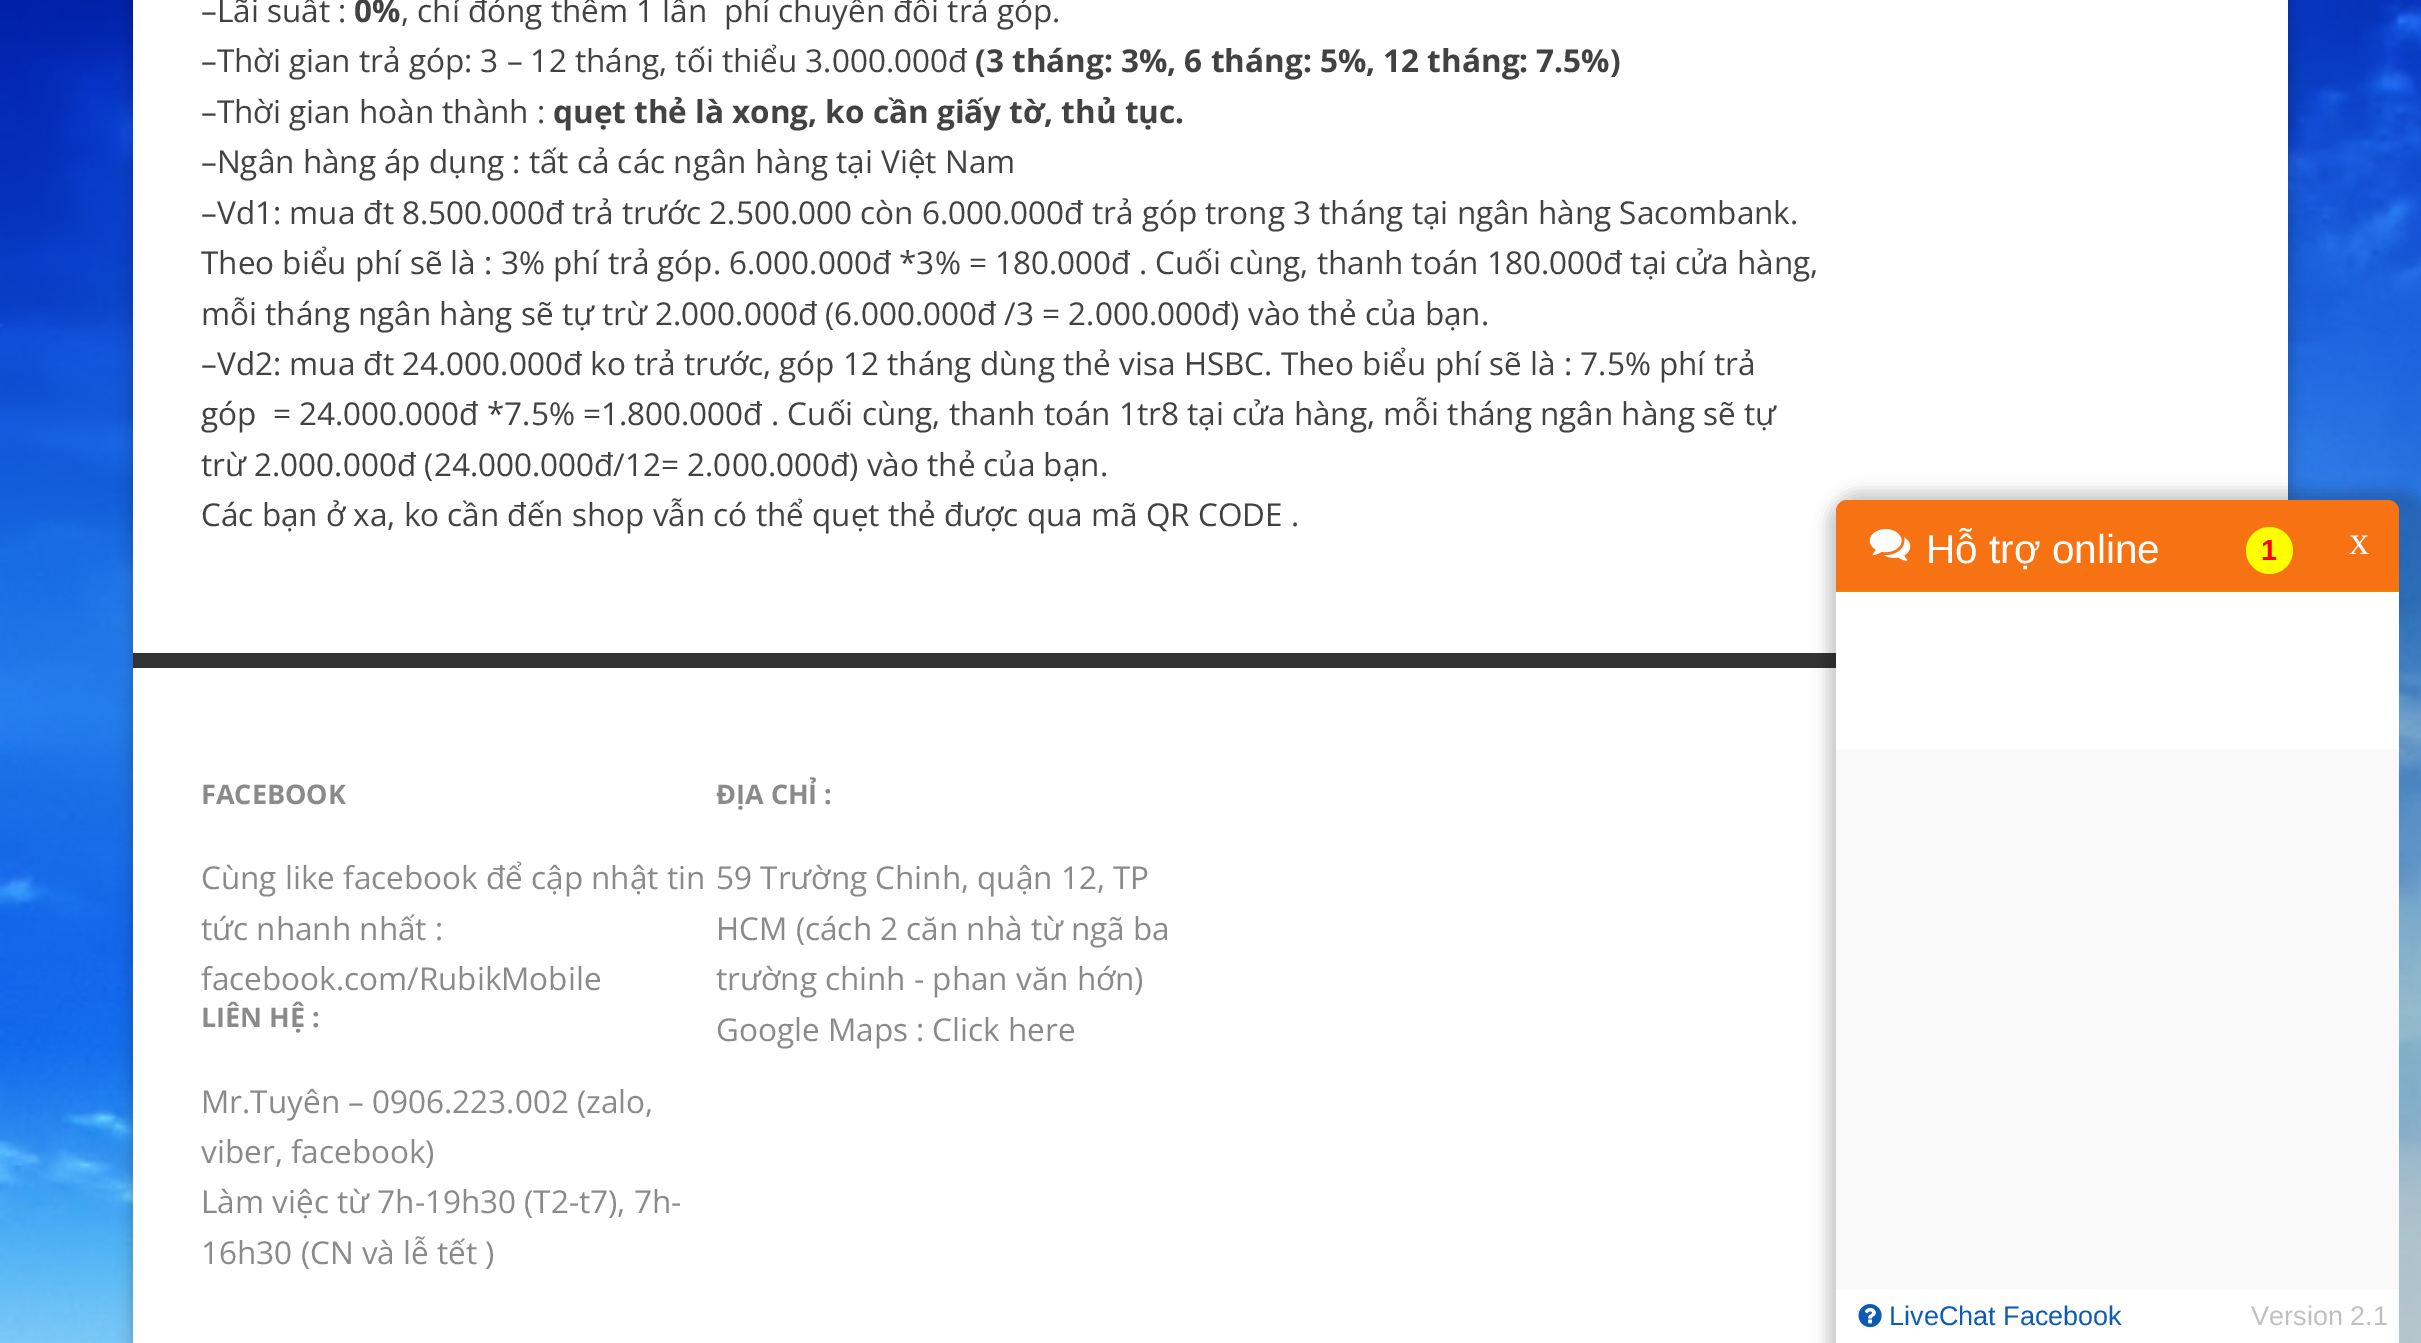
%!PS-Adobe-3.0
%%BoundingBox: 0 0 2421 1343
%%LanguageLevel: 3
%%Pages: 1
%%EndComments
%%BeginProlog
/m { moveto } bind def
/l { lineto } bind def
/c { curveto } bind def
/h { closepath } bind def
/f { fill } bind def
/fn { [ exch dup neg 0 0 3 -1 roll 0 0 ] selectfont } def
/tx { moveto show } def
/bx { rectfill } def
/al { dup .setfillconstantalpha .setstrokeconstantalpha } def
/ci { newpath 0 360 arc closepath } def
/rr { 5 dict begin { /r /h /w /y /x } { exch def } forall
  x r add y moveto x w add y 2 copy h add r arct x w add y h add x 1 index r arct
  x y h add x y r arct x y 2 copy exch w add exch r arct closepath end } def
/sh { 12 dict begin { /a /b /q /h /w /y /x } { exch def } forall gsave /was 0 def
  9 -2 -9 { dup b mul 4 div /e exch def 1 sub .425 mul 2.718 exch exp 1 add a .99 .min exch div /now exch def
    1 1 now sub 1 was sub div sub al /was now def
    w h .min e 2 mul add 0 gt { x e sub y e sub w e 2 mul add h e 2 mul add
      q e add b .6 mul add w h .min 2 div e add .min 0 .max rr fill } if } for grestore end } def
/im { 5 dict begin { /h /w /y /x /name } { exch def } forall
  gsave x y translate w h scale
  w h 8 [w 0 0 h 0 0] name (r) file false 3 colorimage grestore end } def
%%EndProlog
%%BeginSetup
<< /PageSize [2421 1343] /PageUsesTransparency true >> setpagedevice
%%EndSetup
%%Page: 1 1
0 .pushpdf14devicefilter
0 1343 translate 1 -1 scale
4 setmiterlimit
1 setgray
0 0 2421 1343 bx
(image0.raw) 0 0 2421 1343 im
0 setgray
131 -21 2160 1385 0 7 0.2 sh
1 setgray
133 0 2155 1343 bx
/OpenSans-Regular 31.5 fn
0.259 setgray
(–Lãi suất :) 201 22 tx
/OpenSans-Bold 31.5 fn
(0%) 354 22 tx
/OpenSans-Regular 31.5 fn
(, chỉ đóng thêm 1 lần  phí chuyển đổi trả góp.) 401 22 tx
(–Thời gian trả góp: 3 – 12 tháng, tối thiểu 3.000.000đ) 201 72 tx
/OpenSans-Bold 31.5 fn
(\(3 tháng: 3%, 6 tháng: 5%, 12 tháng: 7.5%\)) 975 72 tx
/OpenSans-Regular 31.5 fn
(–Thời gian hoàn thành :) 201 123 tx
/OpenSans-Bold 31.5 fn
(quẹt thẻ là xong, ko cần giấy tờ, thủ tục.) 553 123 tx
/OpenSans-Regular 31.5 fn
(–Ngân hàng áp dụng : tất cả các ngân hàng tại Việt Nam) 201 173 tx
(–Vd1: mua đt 8.500.000đ trả trước 2.500.000 còn 6.000.000đ trả góp trong 3 tháng tại ngân hàng Sacombank.) 201 224 tx
(Theo biểu phí sẽ là : 3% phí trả góp. 6.000.000đ *3% = 180.000đ . Cuối cùng, thanh toán 180.000đ tại cửa hàng,) 201 274 tx
(mỗi tháng ngân hàng sẽ tự trừ 2.000.000đ \(6.000.000đ /3 = 2.000.000đ\) vào thẻ của bạn.) 201 325 tx
(–Vd2: mua đt 24.000.000đ ko trả trước, góp 12 tháng dùng thẻ visa HSBC. Theo biểu phí sẽ là : 7.5% phí trả) 201 375 tx
(góp  = 24.000.000đ *7.5% =1.800.000đ . Cuối cùng, thanh toán 1tr8 tại cửa hàng, mỗi tháng ngân hàng sẽ tự) 201 425 tx
(trừ 2.000.000đ \(24.000.000đ/12= 2.000.000đ\) vào thẻ của bạn.) 201 476 tx
(Các bạn ở xa, ko cần đến shop vẫn có thể quẹt thẻ được qua mã QR CODE .) 201 526 tx
0.2 setgray
133 653 1703 15 bx
/OpenSans-Bold 27 fn
0.541 setgray
(FACEBOOK) 201 804 tx
/OpenSans-Regular 31.5 fn
(Cùng like facebook để cập nhật tin) 201 889 tx
(tức nhanh nhất :) 201 940 tx
(facebook.com/RubikMobile) 201 990 tx
/OpenSans-Bold 27 fn
(LIÊN HỆ :) 201 1027 tx
/OpenSans-Regular 31.5 fn
(Mr.Tuyên – 0906.223.002 \(zalo,) 201 1113 tx
(viber, facebook\)) 201 1163 tx
(Làm việc từ 7h-19h30 \(T2-t7\), 7h-) 201 1213 tx
(16h30 \(CN và lễ tết \)) 201 1264 tx
/OpenSans-Bold 27 fn
(ĐỊA CHỈ :) 716 804 tx
/OpenSans-Regular 31.5 fn
(59 Trường Chinh, quận 12, TP) 716 889 tx
(HCM \(cách 2 căn nhà từ ngã ba) 716 940 tx
(trường chinh - phan văn hớn\)) 716 990 tx
(Google Maps : Click here) 716 1041 tx
0 setgray
1827 491 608 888 34 7 0.2 sh
0.969 0.447 0.075 setrgbcolor
1847 500 m 2388 500 l 2394 500 2399 505 2399 511 c 2399 592 l 1836 592 l 1836 511 l 1836 505 1841 500 1847 500 c h f
0.925 0.51 0.035 setrgbcolor
1836 590 563 2 bx
(image1.raw) 1869 529 42 32 im
/LiberationSans-Regular 40.5 fn
1 setgray
(Hỗ trợ online) 1926 563 tx
1 1 0 setrgbcolor
2269.5 550.5 23.5 ci f
/LiberationSans-Bold 29 fn
1 0 0 setrgbcolor
(1) 2261 560 tx
/LiberationSerif-Regular 40.5 fn
1 setgray
(x) 2349 554 tx
1836 592 563 157 bx
0.976 setgray
1836 749 563 540 bx
1 setgray
1836 1289 563 54 bx
(image2.raw) 1858 1304 24 24 im
/LiberationSans-Regular 27 fn
0.047 0.357 0.71 setrgbcolor
(LiveChat Facebook) 1889 1325 tx
0.753 setgray
(Version 2.1) 2251 1325 tx
.poppdf14devicefilter showpage
%%EOF
